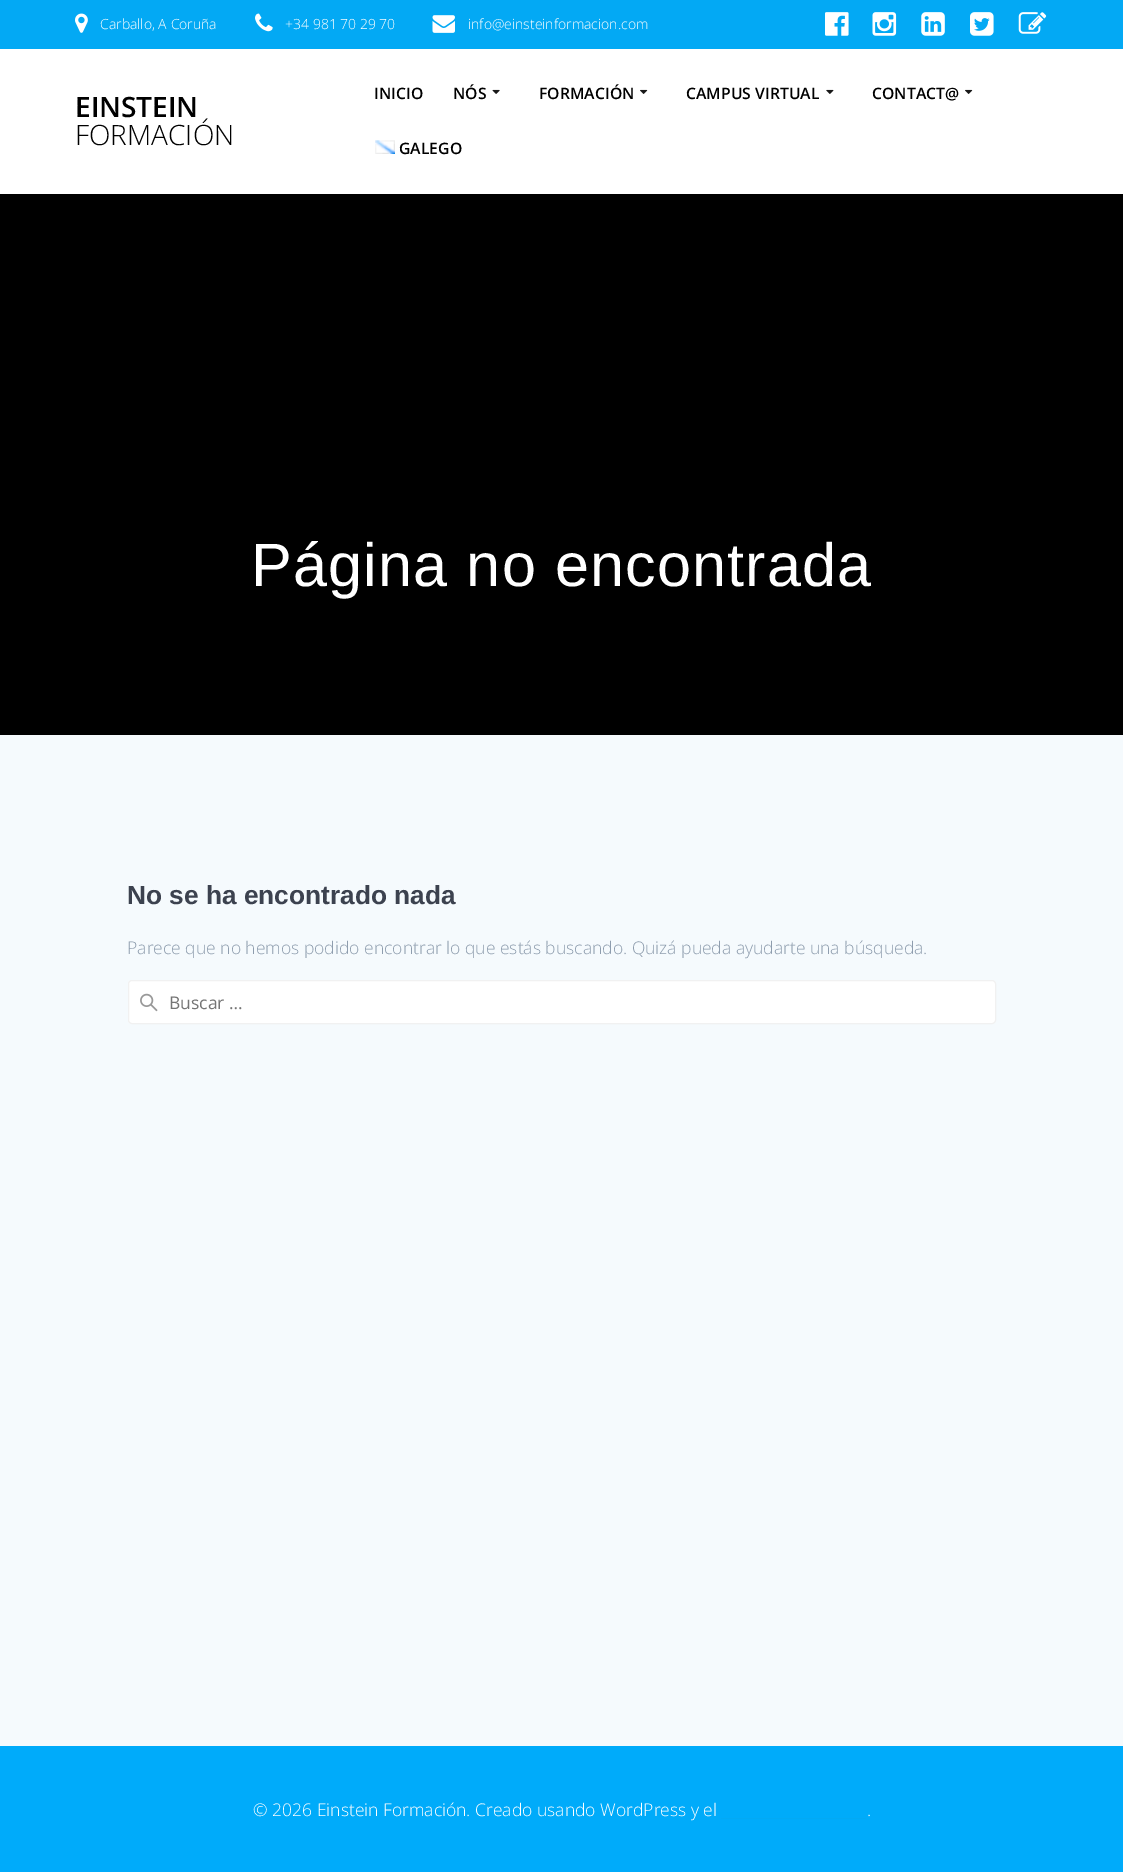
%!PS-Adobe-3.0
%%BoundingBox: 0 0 1123 1872
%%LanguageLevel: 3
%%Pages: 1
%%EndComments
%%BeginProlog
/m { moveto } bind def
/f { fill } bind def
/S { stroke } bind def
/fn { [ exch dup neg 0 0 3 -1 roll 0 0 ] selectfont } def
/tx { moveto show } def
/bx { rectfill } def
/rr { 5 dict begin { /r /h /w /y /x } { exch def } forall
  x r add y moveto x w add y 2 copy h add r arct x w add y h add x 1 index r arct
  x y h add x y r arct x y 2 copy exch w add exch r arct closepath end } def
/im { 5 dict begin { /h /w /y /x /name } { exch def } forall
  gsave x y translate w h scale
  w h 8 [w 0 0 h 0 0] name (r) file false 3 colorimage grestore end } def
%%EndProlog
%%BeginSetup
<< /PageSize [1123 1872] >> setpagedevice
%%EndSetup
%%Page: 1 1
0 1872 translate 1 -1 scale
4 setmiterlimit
0 0.671 0.98 setrgbcolor
0 0 1123 1872 bx
0.012 0.663 0.957 setrgbcolor
0 0 1123 49 bx
(image0.raw) 75 13 13 20 im
/OpenSans-Light 14 fn
1 setgray
(Carballo, A Coruña) 100 29 tx
(image1.raw) 255 13 18 19 im
(+34 981 70 29 70) 285 29 tx
(image2.raw) 432 15 23 18 im
(info@einsteinformacion.com) 468 29 tx
(image3.raw) 825 12 24 24 im
(image4.raw) 872 12 25 24 im
(image5.raw) 921 12 24 24 im
(image6.raw) 970 12 24 24 im
(image7.raw) 1018 12 29 22 im
0 49 1123 145 bx
/OpenSans-SemiBold 28 fn
0 setgray
(EINSTEIN) 75 117 tx
/OpenSans-Light 28 fn
(FORMACIÓN) 75 145 tx
/OpenSans-SemiBold 15.75 fn
(INICIO) 374 99 tx
(NÓS) 453 99 tx
(image8.raw) 492 89 8 5 im
(FORMACIÓN) 539 99 tx
(image9.raw) 640 89 8 5 im
(CAMPUS VIRTUAL) 686 99 tx
(image10.raw) 826 89 8 5 im
(CONTACT@) 872 99 tx
(image9.raw) 965 89 8 5 im
(image11.raw) 375 140 20 14 im
(GALEGO) 399 154 tx
0 194 1123 541 bx
/LiberationSans-Regular 61.25 fn
1 setgray
251 586 m 1.1 0 (Página no encontrada) ashow
0.961 0.98 0.992 setrgbcolor
0 735 1123 1011 bx
/LiberationSans-Bold 26.25 fn
0.235 0.259 0.31 setrgbcolor
(No se ha encontrado nada) 127 904 tx
/OpenSans-Light 17.5 fn
0.557 0.616 0.682 setrgbcolor
(Parece que no hemos podido encontrar lo que estás buscando. Quizá pueda ayudarte una búsqueda.) 127 954 tx
1 setgray
128 980 868 44 4 rr f
(image12.raw) 140 993 18 19 im
0.945 setgray
128.5 980.5 867 43 3.5 rr S
/OpenSans-Regular 17.5 fn
0.459 setgray
(Buscar …) 169 1009 tx
/OpenSans-Light 17.5 fn
1 setgray
(© 2026 Einstein Formación. Creado usando WordPress y el) 253 1816 tx
(.) 867 1816 tx
0.012 0.663 0.957 setrgbcolor
721 1818 145 1 bx
showpage
%%EOF
